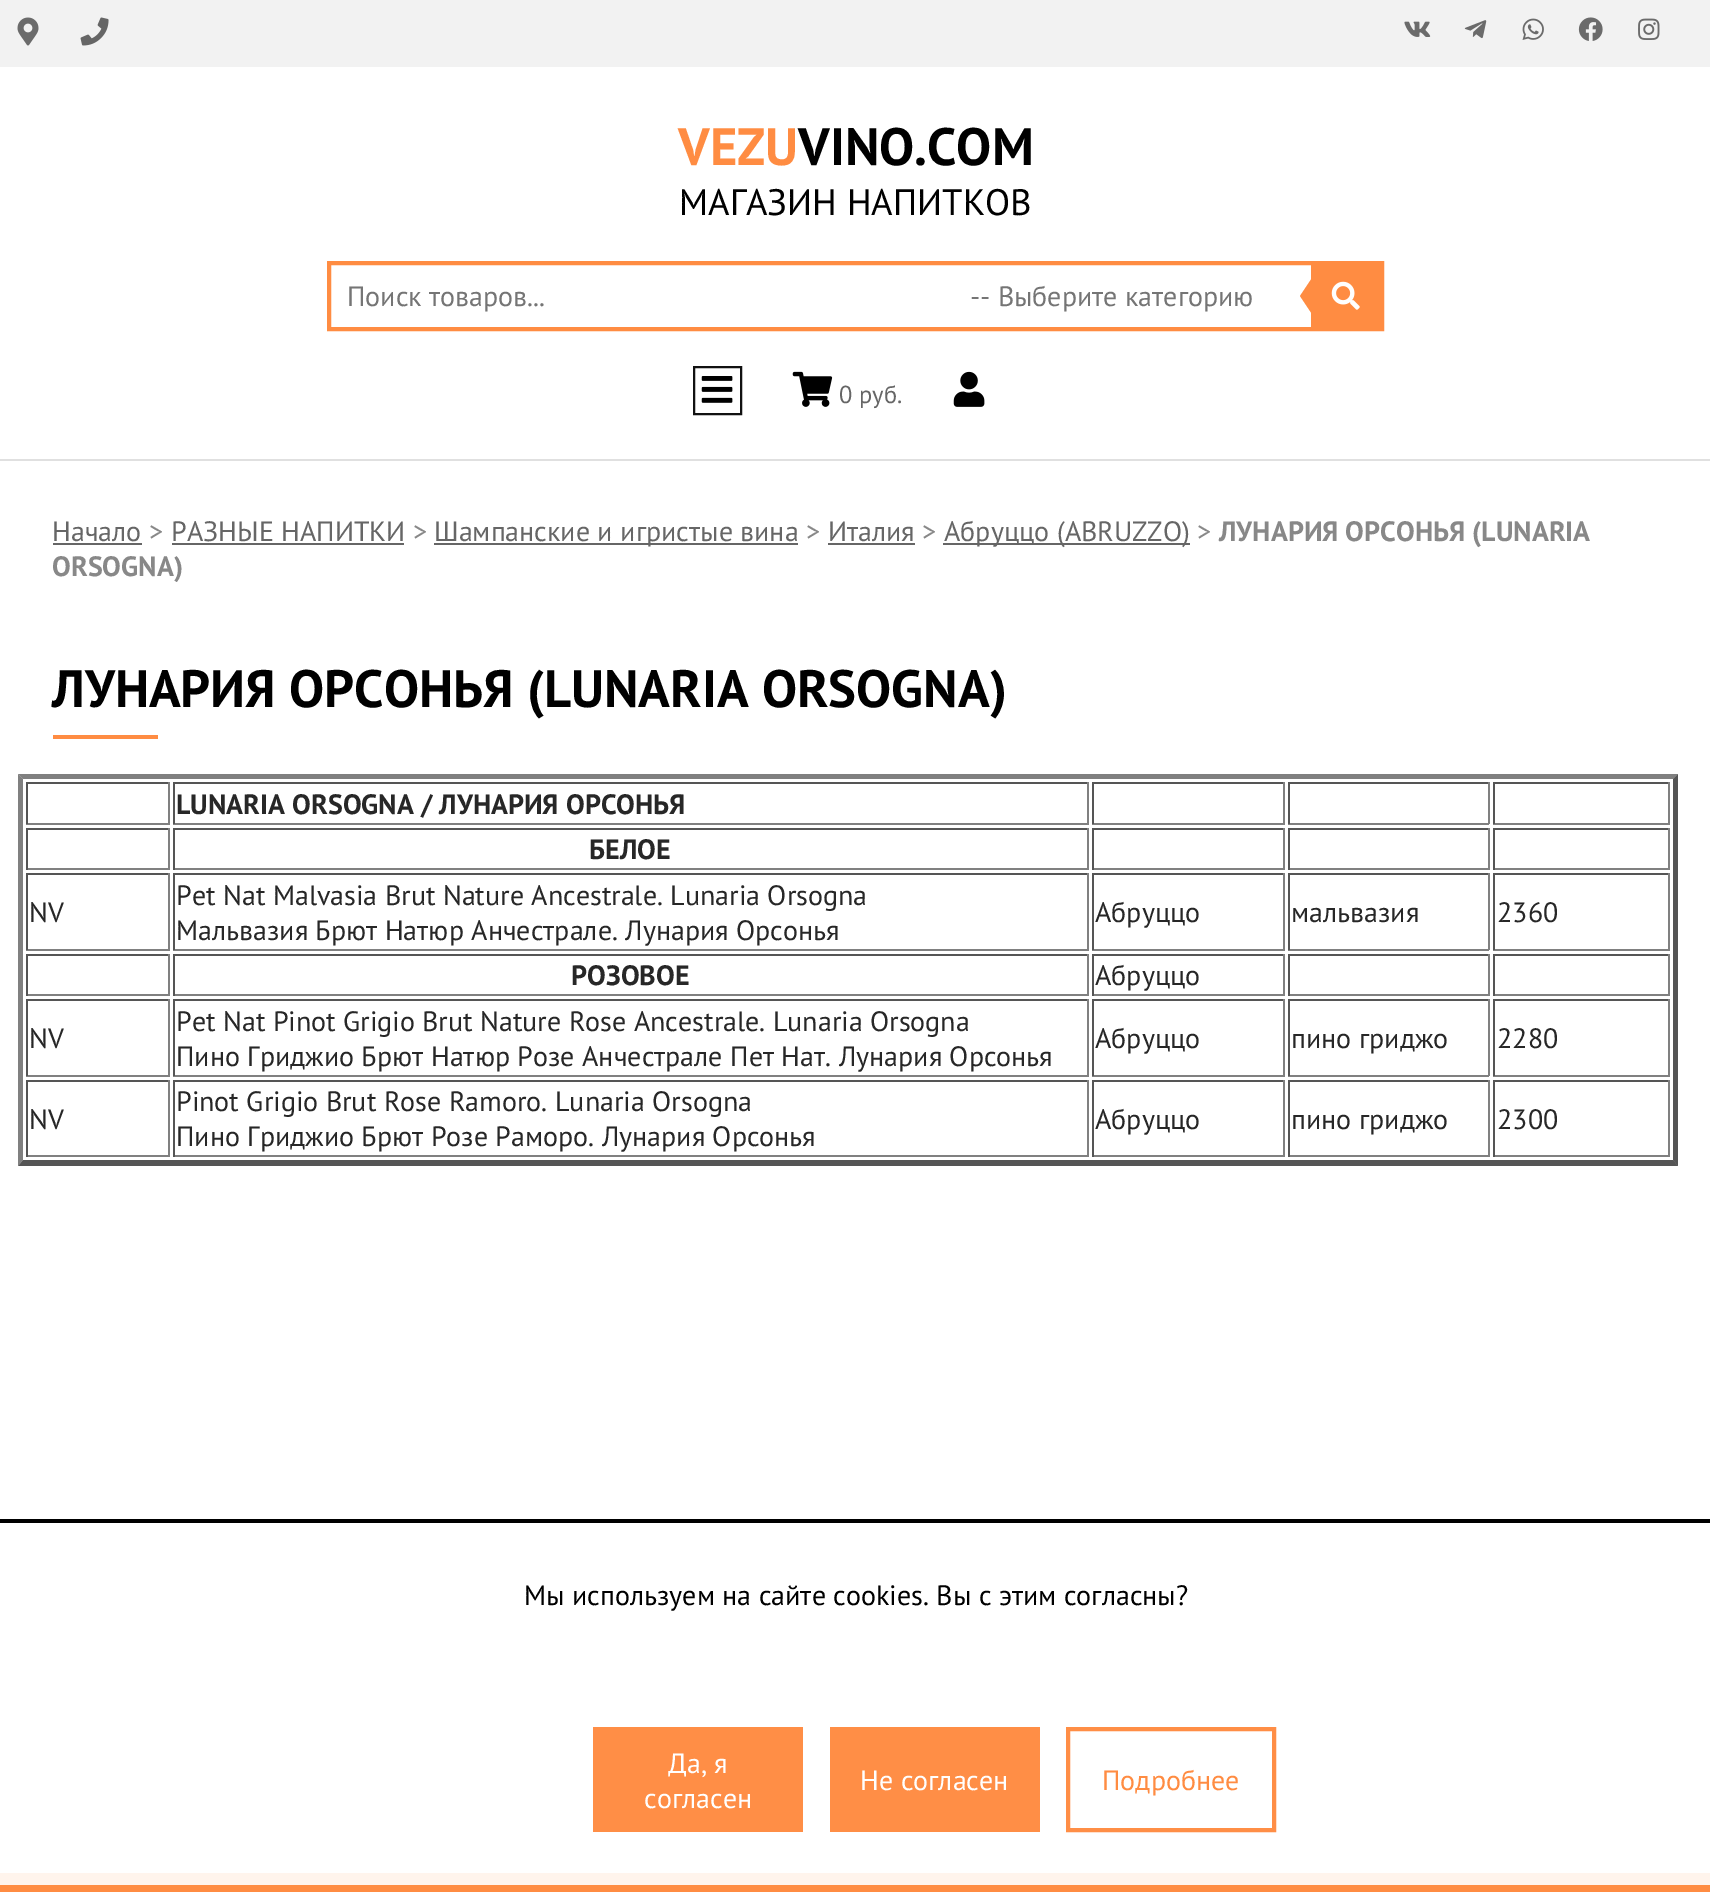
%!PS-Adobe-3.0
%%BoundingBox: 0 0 1710 1892
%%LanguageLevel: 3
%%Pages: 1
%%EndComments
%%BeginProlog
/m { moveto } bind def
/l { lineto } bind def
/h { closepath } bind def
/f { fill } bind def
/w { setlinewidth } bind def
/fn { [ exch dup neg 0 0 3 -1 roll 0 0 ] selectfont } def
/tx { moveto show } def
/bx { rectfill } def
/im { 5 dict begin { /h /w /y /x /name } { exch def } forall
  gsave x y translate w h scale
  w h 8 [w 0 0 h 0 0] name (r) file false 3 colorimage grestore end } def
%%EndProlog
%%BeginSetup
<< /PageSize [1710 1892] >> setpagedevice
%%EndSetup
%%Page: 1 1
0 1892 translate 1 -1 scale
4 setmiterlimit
1 setgray
0 0 1710 1892 bx
0.949 setgray
0 0 1710 67 bx
(image0.raw) 17 17 22 29 im
(image1.raw) 80 17 29 29 im
(image2.raw) 1404 21 27 16 im
(image3.raw) 1464 20 23 19 im
(image4.raw) 1522 18 22 22 im
(image5.raw) 1578 17 25 24 im
(image6.raw) 1638 18 22 22 im
0.878 setgray
0 459 1710 2 bx
/PTSans-Bold 52.5 fn
1 0.549 0.259 setrgbcolor
(VEZU) 678 165 tx
0 setgray
(VINO.COM) 798 165 tx
/PTSans-Regular 36.75 fn
(МАГАЗИН НАПИТКОВ) 679 215 tx
1 0.549 0.259 setrgbcolor
4 w
329 263 1053 66 rectstroke
/PTSans-Regular 28 fn
0.459 setgray
(Поиск товаров...) 347 306 tx
(-- Выберите категорию) 970 306 tx
1 0.549 0.259 setrgbcolor
1311 265 69 62 bx
1314 275 m 1314 317 l 1300 296 l h f
(image7.raw) 1331 281 29 29 im
0.067 setgray
2 w
694 367 47 47 rectstroke
(image8.raw) 701 376 32 27 im
(image9.raw) 792 371 41 36 im
/PTSans-Regular 24.5 fn
0.4 setgray
(0 руб.) 839 403 tx
(image10.raw) 953 371 32 36 im
/PTSans-Regular 28 fn
(Начало) 52 541 tx
53 543 89 2 bx
0.533 setgray
(>) 149 541 tx
0.4 setgray
(РАЗНЫЕ НАПИТКИ) 171 541 tx
172 543 232 2 bx
0.533 setgray
(>) 413 541 tx
0.4 setgray
434 543 364 2 bx
(Шампанские и игристые вина) 434 541 tx
0.533 setgray
(>) 806 541 tx
0.4 setgray
(Италия) 828 541 tx
828 543 87 2 bx
0.533 setgray
(>) 922 541 tx
0.4 setgray
943 543 247 2 bx
(Абруццо \(ABRUZZO\)) 944 541 tx
0.533 setgray
(>) 1197 541 tx
/PTSans-Bold 28 fn
(ЛУНАРИЯ ОРСОНЬЯ \(LUNARIA) 1219 541 tx
(ORSOGNA\)) 52 576 tx
/PTSans-Bold 52.5 fn
0 setgray
(ЛУНАРИЯ ОРСОНЬЯ \(LUNARIA ORSOGNA\)) 52 707 tx
1 0.549 0.259 setrgbcolor
53 735 105 4 bx
0.502 setgray
18 774 m 1678 774 l 1673 779 l 23 779 l h f
0.333 setgray
1678 774 m 1678 1166 l 1673 1160 l 1673 779 l h f
1678 1166 m 18 1166 l 23 1160 l 1673 1160 l h f
0.502 setgray
18 1166 m 18 774 l 23 779 l 23 1160 l h f
0.333 setgray
26 782 144 2 bx
0.502 setgray
168 782 2 42 bx
26 823 144 2 bx
0.333 setgray
26 782 2 42 bx
173 782 916 2 bx
0.502 setgray
1087 782 2 42 bx
173 823 916 2 bx
0.333 setgray
173 782 2 42 bx
/PTSans-Bold 28 fn
0.153 setgray
(LUNARIA ORSOGNA / ЛУНАРИЯ ОРСОНЬЯ) 176 814 tx
0.333 setgray
1092 782 193 2 bx
0.502 setgray
1283 782 2 42 bx
1092 823 193 2 bx
0.333 setgray
1092 782 2 42 bx
1288 782 201 2 bx
0.502 setgray
1488 782 2 42 bx
1288 823 201 2 bx
0.333 setgray
1288 782 2 42 bx
1493 782 177 2 bx
0.502 setgray
1668 782 2 42 bx
1493 823 177 2 bx
0.333 setgray
1493 782 2 42 bx
26 828 144 2 bx
0.502 setgray
168 828 2 42 bx
26 868 144 2 bx
0.333 setgray
26 828 2 42 bx
173 828 916 2 bx
0.502 setgray
1087 828 2 42 bx
173 868 916 2 bx
0.333 setgray
173 828 2 42 bx
0.153 setgray
(БЕЛОЕ) 589 859 tx
0.333 setgray
1092 828 193 2 bx
0.502 setgray
1283 828 2 42 bx
1092 868 193 2 bx
0.333 setgray
1092 828 2 42 bx
1288 828 201 2 bx
0.502 setgray
1488 828 2 42 bx
1288 868 201 2 bx
0.333 setgray
1288 828 2 42 bx
1493 828 177 2 bx
0.502 setgray
1668 828 2 42 bx
1493 868 177 2 bx
0.333 setgray
1493 828 2 42 bx
26 873 144 2 bx
0.502 setgray
168 873 2 77 bx
26 949 144 2 bx
0.333 setgray
26 873 2 77 bx
/PTSans-Regular 28 fn
0.153 setgray
(NV) 29 922 tx
0.333 setgray
173 873 916 2 bx
0.502 setgray
1087 873 2 77 bx
173 949 916 2 bx
0.333 setgray
173 873 2 77 bx
0.153 setgray
(Pet Nat Malvasia Brut Nature Ancestrale. Lunaria Orsogna) 176 905 tx
(Мальвазия Брют Натюр Анчестрале. Лунария Орсонья) 176 940 tx
0.333 setgray
1092 873 193 2 bx
0.502 setgray
1283 873 2 77 bx
1092 949 193 2 bx
0.333 setgray
1092 873 2 77 bx
0.153 setgray
(Абруццо) 1095 922 tx
0.333 setgray
1288 873 201 2 bx
0.502 setgray
1488 873 2 77 bx
1288 949 201 2 bx
0.333 setgray
1288 873 2 77 bx
0.153 setgray
(мальвазия) 1291 922 tx
0.333 setgray
1493 873 177 2 bx
0.502 setgray
1668 873 2 77 bx
1493 949 177 2 bx
0.333 setgray
1493 873 2 77 bx
0.153 setgray
(2360) 1497 922 tx
0.333 setgray
26 954 144 2 bx
0.502 setgray
168 954 2 42 bx
26 994 144 2 bx
0.333 setgray
26 954 2 42 bx
173 954 916 2 bx
0.502 setgray
1087 954 2 42 bx
173 994 916 2 bx
0.333 setgray
173 954 2 42 bx
/PTSans-Bold 28 fn
0.153 setgray
(РОЗОВОЕ) 571 985 tx
0.333 setgray
1092 954 193 2 bx
0.502 setgray
1283 954 2 42 bx
1092 994 193 2 bx
0.333 setgray
1092 954 2 42 bx
/PTSans-Regular 28 fn
0.153 setgray
(Абруццо) 1095 985 tx
0.333 setgray
1288 954 201 2 bx
0.502 setgray
1488 954 2 42 bx
1288 994 201 2 bx
0.333 setgray
1288 954 2 42 bx
1493 954 177 2 bx
0.502 setgray
1668 954 2 42 bx
1493 994 177 2 bx
0.333 setgray
1493 954 2 42 bx
26 999 144 2 bx
0.502 setgray
168 999 2 77 bx
26 1075 144 2 bx
0.333 setgray
26 999 2 77 bx
0.153 setgray
(NV) 29 1048 tx
0.333 setgray
173 999 916 2 bx
0.502 setgray
1087 999 2 77 bx
173 1075 916 2 bx
0.333 setgray
173 999 2 77 bx
0.153 setgray
(Pet Nat Pinot Grigio Brut Nature Rose Ancestrale. Lunaria Orsogna) 176 1031 tx
(Пино Гриджио Брют Натюр Розе Анчестрале Пет Нат. Лунария Орсонья) 176 1066 tx
0.333 setgray
1092 999 193 2 bx
0.502 setgray
1283 999 2 77 bx
1092 1075 193 2 bx
0.333 setgray
1092 999 2 77 bx
0.153 setgray
(Абруццо) 1095 1048 tx
0.333 setgray
1288 999 201 2 bx
0.502 setgray
1488 999 2 77 bx
1288 1075 201 2 bx
0.333 setgray
1288 999 2 77 bx
0.153 setgray
(пино гриджо) 1291 1048 tx
0.333 setgray
1493 999 177 2 bx
0.502 setgray
1668 999 2 77 bx
1493 1075 177 2 bx
0.333 setgray
1493 999 2 77 bx
0.153 setgray
(2280) 1497 1048 tx
0.333 setgray
26 1080 144 2 bx
0.502 setgray
168 1080 2 77 bx
26 1155 144 2 bx
0.333 setgray
26 1080 2 77 bx
0.153 setgray
(NV) 29 1129 tx
0.333 setgray
173 1080 916 2 bx
0.502 setgray
1087 1080 2 77 bx
173 1155 916 2 bx
0.333 setgray
173 1080 2 77 bx
0.153 setgray
(Pinot Grigio Brut Rose Ramoro. Lunaria Orsogna) 176 1111 tx
(Пино Гриджио Брют Розе Раморо. Лунария Орсонья) 176 1146 tx
0.333 setgray
1092 1080 193 2 bx
0.502 setgray
1283 1080 2 77 bx
1092 1155 193 2 bx
0.333 setgray
1092 1080 2 77 bx
0.153 setgray
(Абруццо) 1095 1129 tx
0.333 setgray
1288 1080 201 2 bx
0.502 setgray
1488 1080 2 77 bx
1288 1155 201 2 bx
0.333 setgray
1288 1080 2 77 bx
0.153 setgray
(пино гриджо) 1291 1129 tx
0.333 setgray
1493 1080 177 2 bx
0.502 setgray
1668 1080 2 77 bx
1493 1155 177 2 bx
0.333 setgray
1493 1080 2 77 bx
0.153 setgray
(2300) 1497 1129 tx
0 setgray
0 1519 1710 4 bx
(Мы используем на сайте cookies. Вы с этим согласны?) 524 1605 tx
1 0.557 0.275 setrgbcolor
593 1727 210 105 bx
1 setgray
(Да, я) 668 1773 tx
(согласен) 644 1808 tx
1 0.557 0.275 setrgbcolor
830 1727 210 105 bx
1 setgray
(Не согласен) 860 1790 tx
1 0.557 0.275 setrgbcolor
4 w
1068 1729 206 101 rectstroke
1 0.549 0.259 setrgbcolor
(Подробнее) 1102 1790 tx
0 1885 1710 7 bx
1 0.957 0.925 setrgbcolor
0 1873 1710 12 bx
showpage
%%EOF
